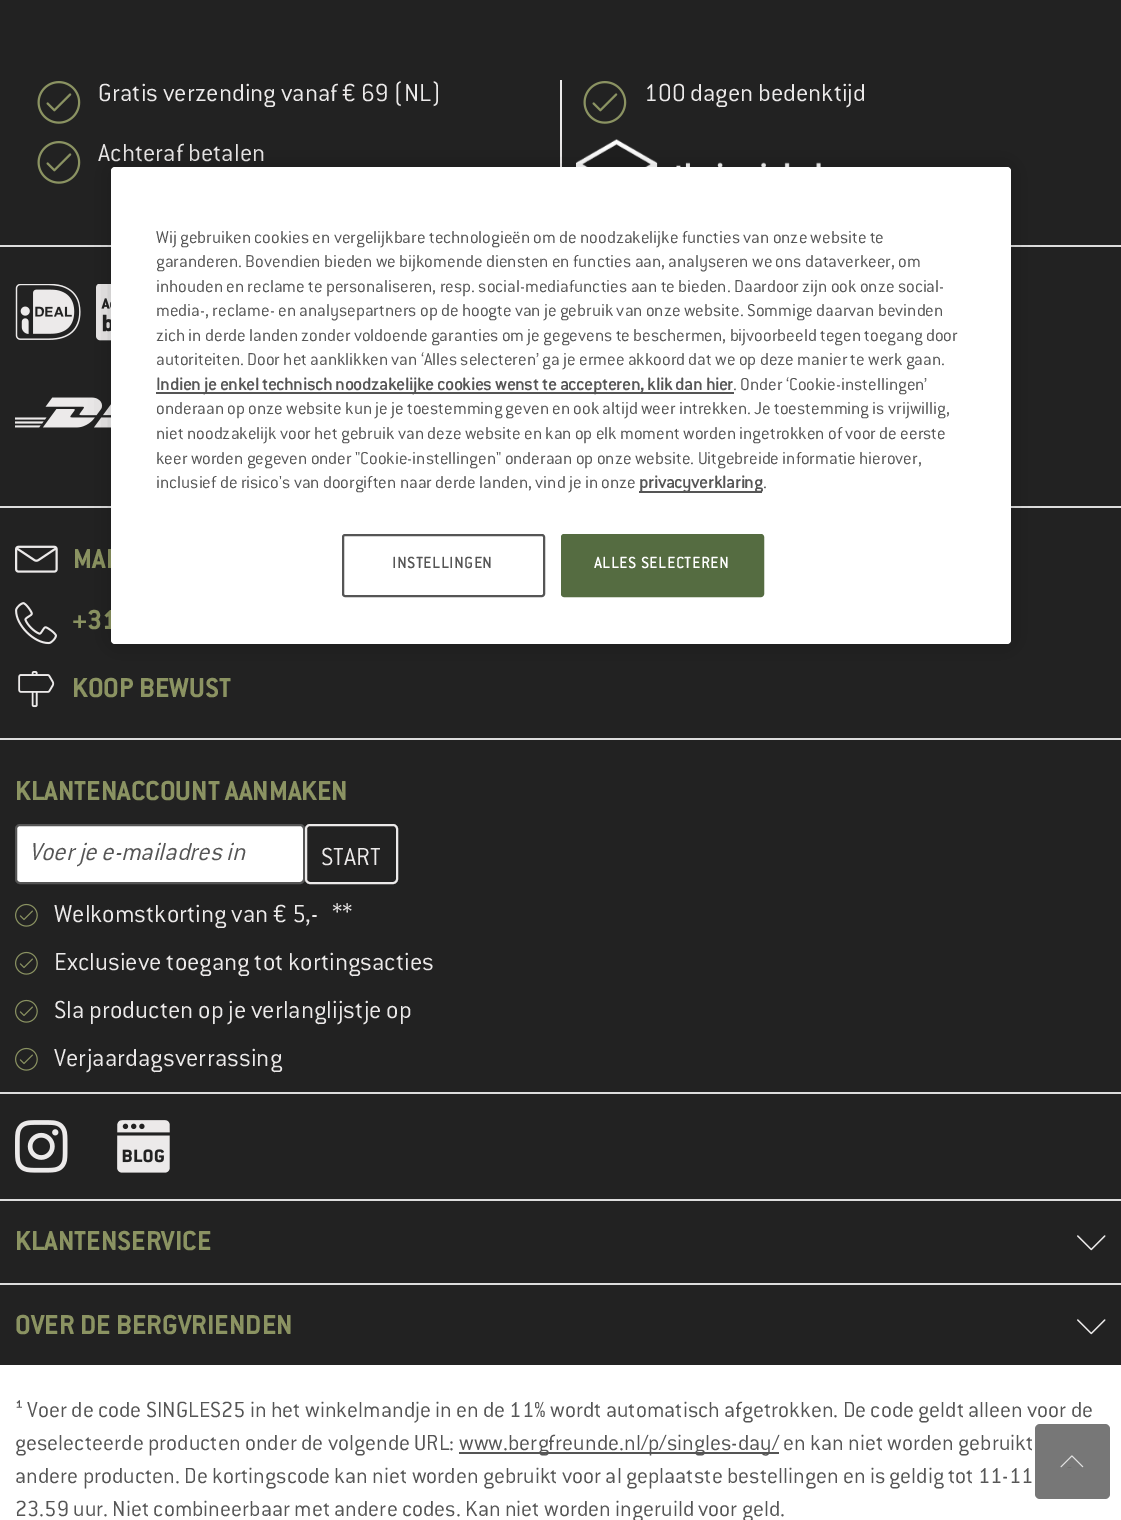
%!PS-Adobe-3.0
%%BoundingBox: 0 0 1121 1520
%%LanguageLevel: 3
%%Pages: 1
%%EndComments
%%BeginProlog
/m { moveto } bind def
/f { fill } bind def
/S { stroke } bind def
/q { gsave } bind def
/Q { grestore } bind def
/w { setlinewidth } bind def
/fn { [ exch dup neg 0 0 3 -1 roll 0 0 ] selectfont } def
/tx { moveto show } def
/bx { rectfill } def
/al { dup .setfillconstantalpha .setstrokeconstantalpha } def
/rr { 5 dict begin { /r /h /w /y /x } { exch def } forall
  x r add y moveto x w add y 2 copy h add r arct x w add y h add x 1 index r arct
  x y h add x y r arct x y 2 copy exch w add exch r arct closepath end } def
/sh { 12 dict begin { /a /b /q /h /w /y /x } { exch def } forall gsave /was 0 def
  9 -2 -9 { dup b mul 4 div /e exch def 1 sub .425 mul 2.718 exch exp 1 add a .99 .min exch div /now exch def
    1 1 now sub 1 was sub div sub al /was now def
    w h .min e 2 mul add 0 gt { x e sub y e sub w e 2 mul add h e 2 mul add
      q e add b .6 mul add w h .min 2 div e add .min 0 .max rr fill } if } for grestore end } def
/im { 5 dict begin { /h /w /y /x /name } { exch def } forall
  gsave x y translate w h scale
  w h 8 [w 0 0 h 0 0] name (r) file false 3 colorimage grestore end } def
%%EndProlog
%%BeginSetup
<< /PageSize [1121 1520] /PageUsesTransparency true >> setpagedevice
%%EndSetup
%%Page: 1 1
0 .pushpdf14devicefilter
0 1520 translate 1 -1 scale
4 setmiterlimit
1 setgray
0 0 1121 1520 bx
0.133 setgray
0 0 1121 1365 bx
0.925 0.918 0.918 setrgbcolor
560 80 2 90 bx
(image0.raw) 37 81 44 43 im
/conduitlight-Light 27 fn
(Gratis verzending vanaf € 69 \(NL\)) 98 101 tx
(image0.raw) 37 141 44 43 im
(Achteraf betalen) 98 161 tx
(image0.raw) 583 81 44 43 im
(100 dagen bedenktijd) 644 101 tx
(image1.raw) 576 139 245 28 im
0.867 setgray
0 245 1121 2 bx
(image2.raw) 15 284 66 56 im
(image3.raw) 96 284 15 57 im
(image4.raw) 15 397 96 31 im
0 506 1121 2 bx
(image5.raw) 15 545 43 28 im
/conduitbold-Bold 30 fn
0.545 0.576 0.384 setrgbcolor
(MAI) 73 568 tx
(image6.raw) 15 602 42 43 im
(+31) 72 629 tx
(image7.raw) 18 671 37 37 im
(KOOP BEWUST) 72 697 tx
0.867 setgray
0 738 1121 2 bx
0.545 0.576 0.384 setrgbcolor
(KLANTENACCOUNT AANMAKEN) 15 800 tx
1 setgray
16 825 288 58 4 rr q f Q
0.333 setgray
2 w
S
/conduitlight-LightItalic 27 fn
(Voer je e-mailadres in) 29 860 tx
0.925 0.918 0.918 setrgbcolor
306 825 91 58 4 rr S
/conduitlight-Light 27 fn
(START) 321 865 tx
(image8.raw) 15 903 23 24 im
(Welkomstkorting van € 5,-) 54 922 tx
(**) 332 922 tx
(image8.raw) 15 951 23 24 im
(Exclusieve toegang tot kortingsacties) 54 970 tx
(image8.raw) 15 999 23 24 im
(Sla producten op je verlanglijstje op) 54 1018 tx
(image8.raw) 15 1047 23 24 im
(Verjaardagsverrassing) 54 1066 tx
0.867 setgray
0 1092 1121 2 bx
(image9.raw) 15 1120 53 53 im
(image10.raw) 117 1120 53 53 im
0 1199 1121 2 bx
/conduitbold-Bold 30 fn
0.545 0.576 0.384 setrgbcolor
(KLANTENSERVICE) 15 1250 tx
(image11.raw) 1077 1235 29 16 im
0.867 setgray
0 1283 1121 2 bx
0.545 0.576 0.384 setrgbcolor
(OVER DE BERGVRIENDEN) 15 1334 tx
(image11.raw) 1077 1319 29 16 im
/conduitlight-Light 24 fn
0.333 setgray
(¹ Voer de code SINGLES25 in het winkelmandje in en de 11% wordt automatisch afgetrokken. De code geldt alleen voor de) 15 1417 tx
(geselecteerde producten onder de volgende URL:) 15 1450 tx
459 1452 320 2 bx
(www.bergfreunde.nl/p/singles-day/ en kan niet worden gebruikt) 459 1450 tx
(andere producten. De kortingscode kan niet worden gebruikt voor al geplaatste bestellingen en is geldig tot 11-11) 15 1483 tx
(23.59 uur. Niet combineerbaar met andere codes. Kan niet worden ingeruild voor geld.) 15 1516 tx
0 setgray
111 167 900 477 4 13.5 0.2 sh
1 setgray
111 167 900 477 4 rr f
/conduitlight-Light 18.9 fn
0.333 setgray
(Wij gebruiken cookies en vergelijkbare technologieën om de noodzakelijke functies van onze website te) 156 243 tx
(garanderen. Bovendien bieden we bijkomende diensten en functies aan, analyseren we ons dataverkeer, om) 156 267 tx
(inhouden en reclame te personaliseren, resp. social-mediafuncties aan te bieden. Daardoor zijn ook onze social-) 156 292 tx
(media-, reclame- en analysepartners op de hoogte van je gebruik van onze website. Sommige daarvan bevinden) 156 316 tx
(zich in derde landen zonder voldoende garanties om je gegevens te beschermen, bijvoorbeeld tegen toegang door) 156 341 tx
(autoriteiten. Door het aanklikken van ‘Alles selecteren’ ga je ermee akkoord dat we op deze manier te werk gaan.) 156 365 tx
156 392 578 2 bx
/conduitlight-Bold 18.9 fn
(Indien je enkel technisch noodzakelijke cookies wenst te accepteren, klik dan hier) 156 390 tx
/conduitlight-Light 18.9 fn
(. Onder ‘Cookie-instellingen’) 733 390 tx
(onderaan op onze website kun je je toestemming geven en ook altijd weer intrekken. Je toestemming is vrijwillig,) 156 414 tx
(niet noodzakelijk voor het gebruik van deze website en kan op elk moment worden ingetrokken of voor de eerste) 156 439 tx
(keer worden gegeven onder "Cookie-instellingen" onderaan op onze website. Uitgebreide informatie hierover,) 156 464 tx
(inclusief de risico's van doorgiften naar derde landen, vind je in onze) 156 488 tx
639 491 123 2 bx
/conduitlight-Bold 18.9 fn
(privacyverklaring) 639 488 tx
/conduitlight-Light 18.9 fn
(.) 763 488 tx
343 535 201 61 2 rr S
/conduitlight-Bold 17 fn
392 568 m 0.8 0 (INSTELLINGEN) ashow
0.333 0.424 0.255 setrgbcolor
562 535 201 61 2 rr q f Q
S
1 setgray
594 568 m 0.8 0 (ALLES SELECTEREN) ashow
0.8 al
0.333 setgray
1035 1424 75 75 5 rr f
1 al
(image12.raw) 1060 1455 24 13 im
.poppdf14devicefilter showpage
%%EOF
